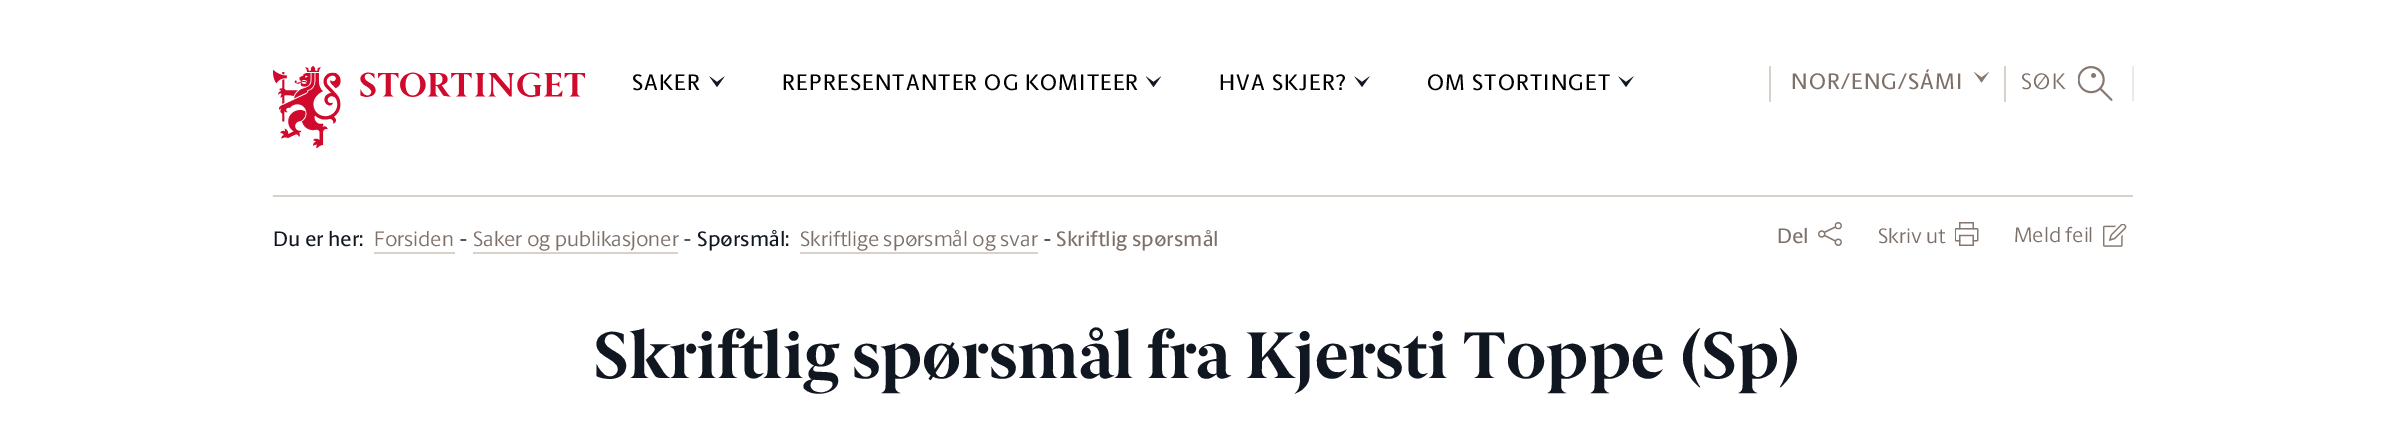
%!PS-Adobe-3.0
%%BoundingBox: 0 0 2405 447
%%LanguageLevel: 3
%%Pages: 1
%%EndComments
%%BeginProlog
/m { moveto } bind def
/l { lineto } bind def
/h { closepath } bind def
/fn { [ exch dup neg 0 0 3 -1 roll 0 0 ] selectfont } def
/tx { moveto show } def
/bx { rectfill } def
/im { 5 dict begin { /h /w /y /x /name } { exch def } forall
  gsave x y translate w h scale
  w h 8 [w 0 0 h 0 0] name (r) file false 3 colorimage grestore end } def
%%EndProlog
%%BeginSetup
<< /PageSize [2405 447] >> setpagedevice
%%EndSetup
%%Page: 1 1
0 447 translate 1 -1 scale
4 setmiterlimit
1 setgray
0 0 2405 447 bx
(image0.raw) 273 66 313 83 im
/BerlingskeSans-Medium 22.5 fn
0 setgray
632 90 m 1.2 0 (SAKER) ashow
0.067 0.094 0.125 setrgbcolor
717 82 m 709.5 76.5 l 717 87 l 724.5 76.5 l h eofill
0 setgray
782 90 m 1.2 0 (REPRESENTANTER OG KOMITEER) ashow
0.067 0.094 0.125 setrgbcolor
1153.5 82 m 1146 76.5 l 1153.5 87 l 1161 76.5 l h eofill
0 setgray
1219 90 m 1.2 0 (HVA SKJER?) ashow
0.067 0.094 0.125 setrgbcolor
1362 82 m 1354.5 76.5 l 1362 87 l 1369.5 76.5 l h eofill
0 setgray
1427 90 m 1.2 0 (OM STORTINGET) ashow
0.067 0.094 0.125 setrgbcolor
1626 82 m 1618.5 76.5 l 1626 87 l 1633.5 76.5 l h eofill
0.847 0.82 0.792 setrgbcolor
2004 66 2 36 bx
1769 66 2 36 bx
0.49 0.439 0.408 setrgbcolor
1791 89 m 1.2 0 (NOR/ENG/SÁMI) ashow
0.525 0.471 0.435 setrgbcolor
1981.5 77.5 m 1974 72 l 1981.5 82.5 l 1989 72 l h eofill
0.925 0.91 0.898 setrgbcolor
2132 66 2 35 bx
/BerlingskeSans-Regular 22.5 fn
0.49 0.439 0.408 setrgbcolor
2021 89 m 1.2 0 (SØK) ashow
(image1.raw) 2078 66 35 35 im
0.847 0.82 0.792 setrgbcolor
273 195 1860 2 bx
/BerlingskeSans-Medium 21 fn
0.067 0.09 0.125 setrgbcolor
(Du er her:) 273 246 tx
0.847 0.82 0.792 setrgbcolor
374 252 81 2 bx
/BerlingskeSans-Regular 21 fn
0.49 0.439 0.408 setrgbcolor
(Forsiden) 374 246 tx
/BerlingskeSans-Medium 21 fn
0.067 0.09 0.125 setrgbcolor
(-) 460 246 tx
0.847 0.82 0.792 setrgbcolor
473 252 205 2 bx
/BerlingskeSans-Regular 21 fn
0.49 0.439 0.408 setrgbcolor
(Saker og publikasjoner) 473 246 tx
/BerlingskeSans-Medium 21 fn
0.067 0.09 0.125 setrgbcolor
(-) 684 246 tx
(Spørsmål:) 697 246 tx
0.847 0.82 0.792 setrgbcolor
800 252 238 2 bx
/BerlingskeSans-Regular 21 fn
0.49 0.439 0.408 setrgbcolor
(Skriftlige spørsmål og svar) 800 246 tx
/BerlingskeSans-Medium 21 fn
0.067 0.09 0.125 setrgbcolor
(-) 1044 246 tx
0.49 0.439 0.408 setrgbcolor
(Skriftlig spørsmål) 1056 246 tx
(Del) 1777 243 tx
(image2.raw) 1818 222 24 24 im
/BerlingskeSans-Regular 21 fn
(Skriv ut) 1878 243 tx
(image3.raw) 1955 222 24 24 im
(Meld feil) 2014 242 tx
(image4.raw) 2103 224 24 23 im
/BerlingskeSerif-Bold 66 fn
0.067 0.09 0.125 setrgbcolor
(Skriftlig spørsmål fra Kjersti Toppe \(Sp\)) 593 378 tx
showpage
%%EOF
